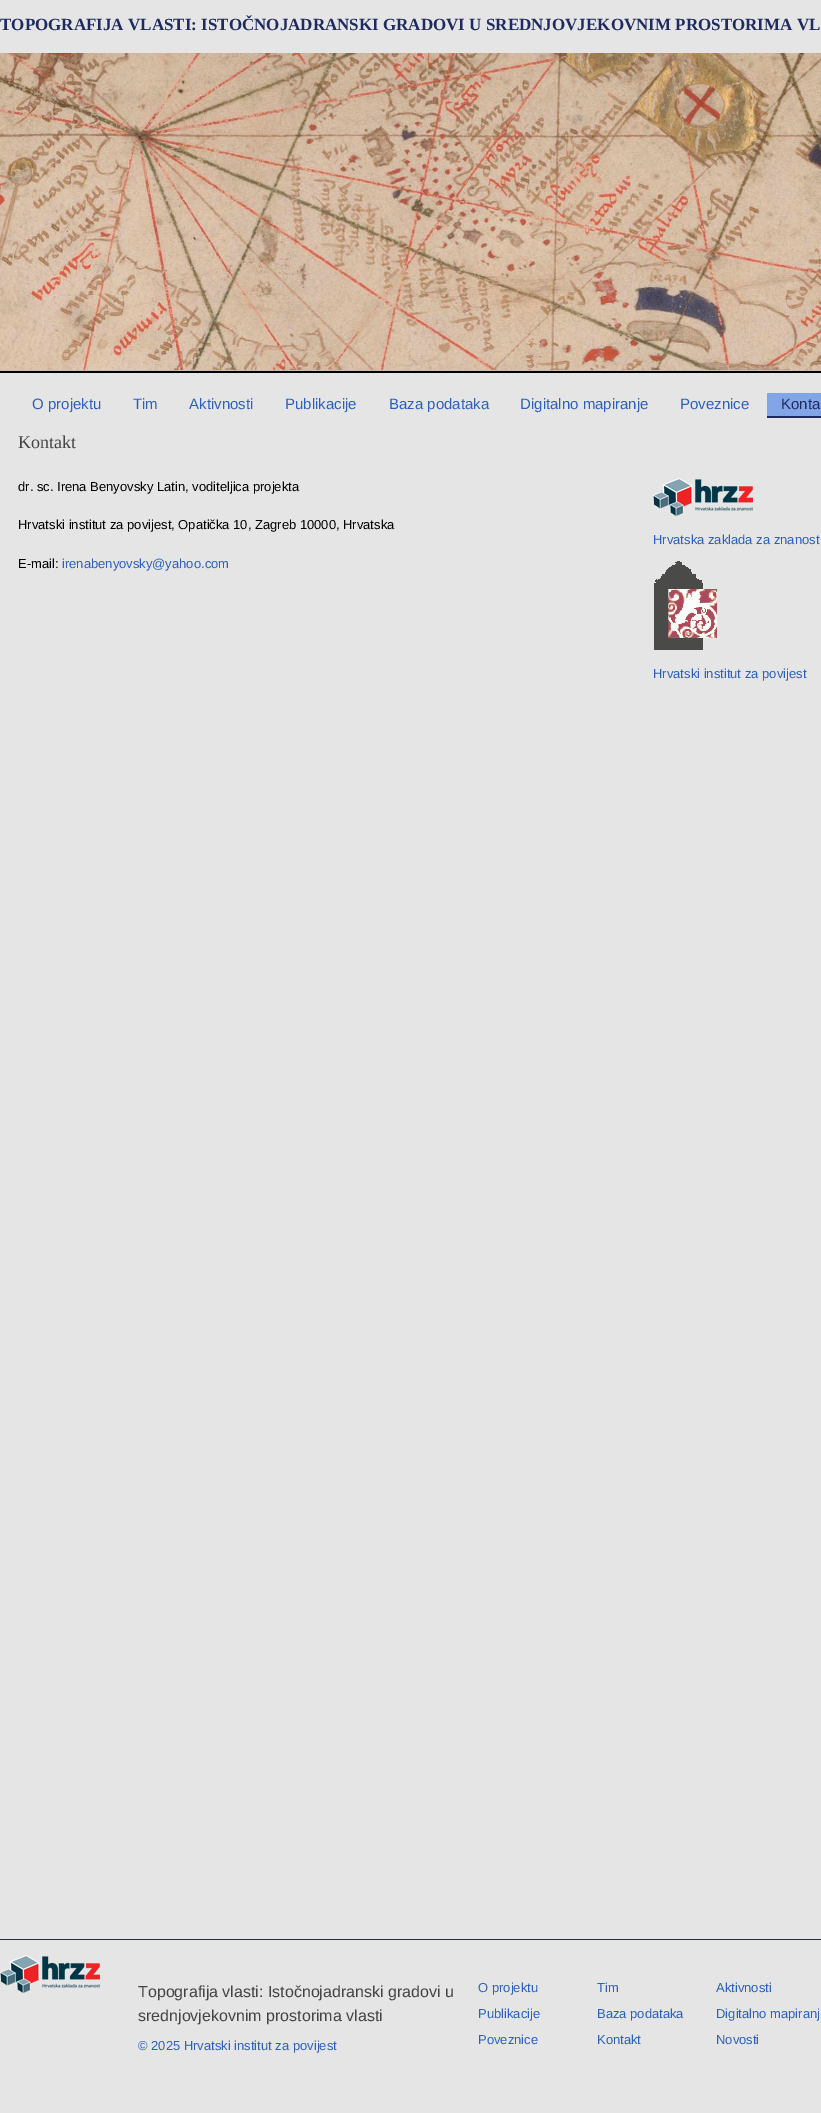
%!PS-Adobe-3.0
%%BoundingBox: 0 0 821 2113
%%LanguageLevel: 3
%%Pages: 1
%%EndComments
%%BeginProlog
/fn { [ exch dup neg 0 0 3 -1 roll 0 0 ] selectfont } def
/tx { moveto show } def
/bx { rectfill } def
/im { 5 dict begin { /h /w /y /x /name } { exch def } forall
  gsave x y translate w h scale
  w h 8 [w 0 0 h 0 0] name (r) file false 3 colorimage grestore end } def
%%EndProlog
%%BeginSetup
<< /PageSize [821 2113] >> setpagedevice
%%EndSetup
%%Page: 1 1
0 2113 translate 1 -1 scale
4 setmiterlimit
0.898 setgray
0 0 821 2113 bx
/LiberationSerif-Bold 17 fn
0.122 0.169 0.369 setrgbcolor
(TOPOGRAFIJA VLASTI: ISTOČNOJADRANSKI GRADOVI U SREDNJOVJEKOVNIM PROSTORIMA VL) 0 30 tx
(image0.raw) 0 53 821 317 im
0.749 setgray
0 370 821 1 bx
0 setgray
0 371 821 2 bx
/LiberationSans-Regular 15 fn
0.176 0.376 0.745 setrgbcolor
(O projektu) 32 409 tx
(Tim) 133 409 tx
(Aktivnosti) 189 409 tx
(Publikacije) 285 409 tx
(Baza podataka) 389 409 tx
(Digitalno mapiranje) 520 409 tx
(Poveznice) 680 409 tx
0.51 0.647 0.906 setrgbcolor
767 393 54 23 bx
0.122 0.169 0.369 setrgbcolor
767 416 54 2 bx
(Konta) 781 409 tx
/LiberationSerif-Regular 18 fn
0.267 setgray
(Kontakt) 18 448 tx
/LiberationSans-Regular 13 fn
0 setgray
(dr. sc. Irena Benyovsky Latin, voditeljica projekta) 18 491 tx
(Hrvatski institut za povijest, Opatička 10, Zagreb 10000, Hrvatska) 18 529 tx
(E-mail:) 18 568 tx
0.176 0.376 0.745 setrgbcolor
(irenabenyovsky@yahoo.com) 62 568 tx
(image1.raw) 653 478 100 38 im
(Hrvatska zaklada za znanost) 653 544 tx
(image2.raw) 654 561 63 89 im
(Hrvatski institut za povijest) 653 678 tx
0.122 0.169 0.369 setrgbcolor
0 1939 821 1 bx
(image1.raw) 0 1955 100 38 im
/LiberationSans-Regular 16 fn
0.267 setgray
(Topografija vlasti: Istočnojadranski gradovi u) 138 1997 tx
(srednjovjekovnim prostorima vlasti) 138 2021 tx
/LiberationSans-Regular 13 fn
0.176 0.376 0.745 setrgbcolor
(© 2025 Hrvatski institut za povijest) 138 2050 tx
(O projektu) 478 1992 tx
(Tim) 597 1992 tx
(Aktivnosti) 716 1992 tx
(Publikacije) 478 2018 tx
(Baza podataka) 597 2018 tx
(Digitalno mapiranj) 716 2018 tx
(Poveznice) 478 2044 tx
(Kontakt) 597 2044 tx
(Novosti) 716 2044 tx
showpage
%%EOF
